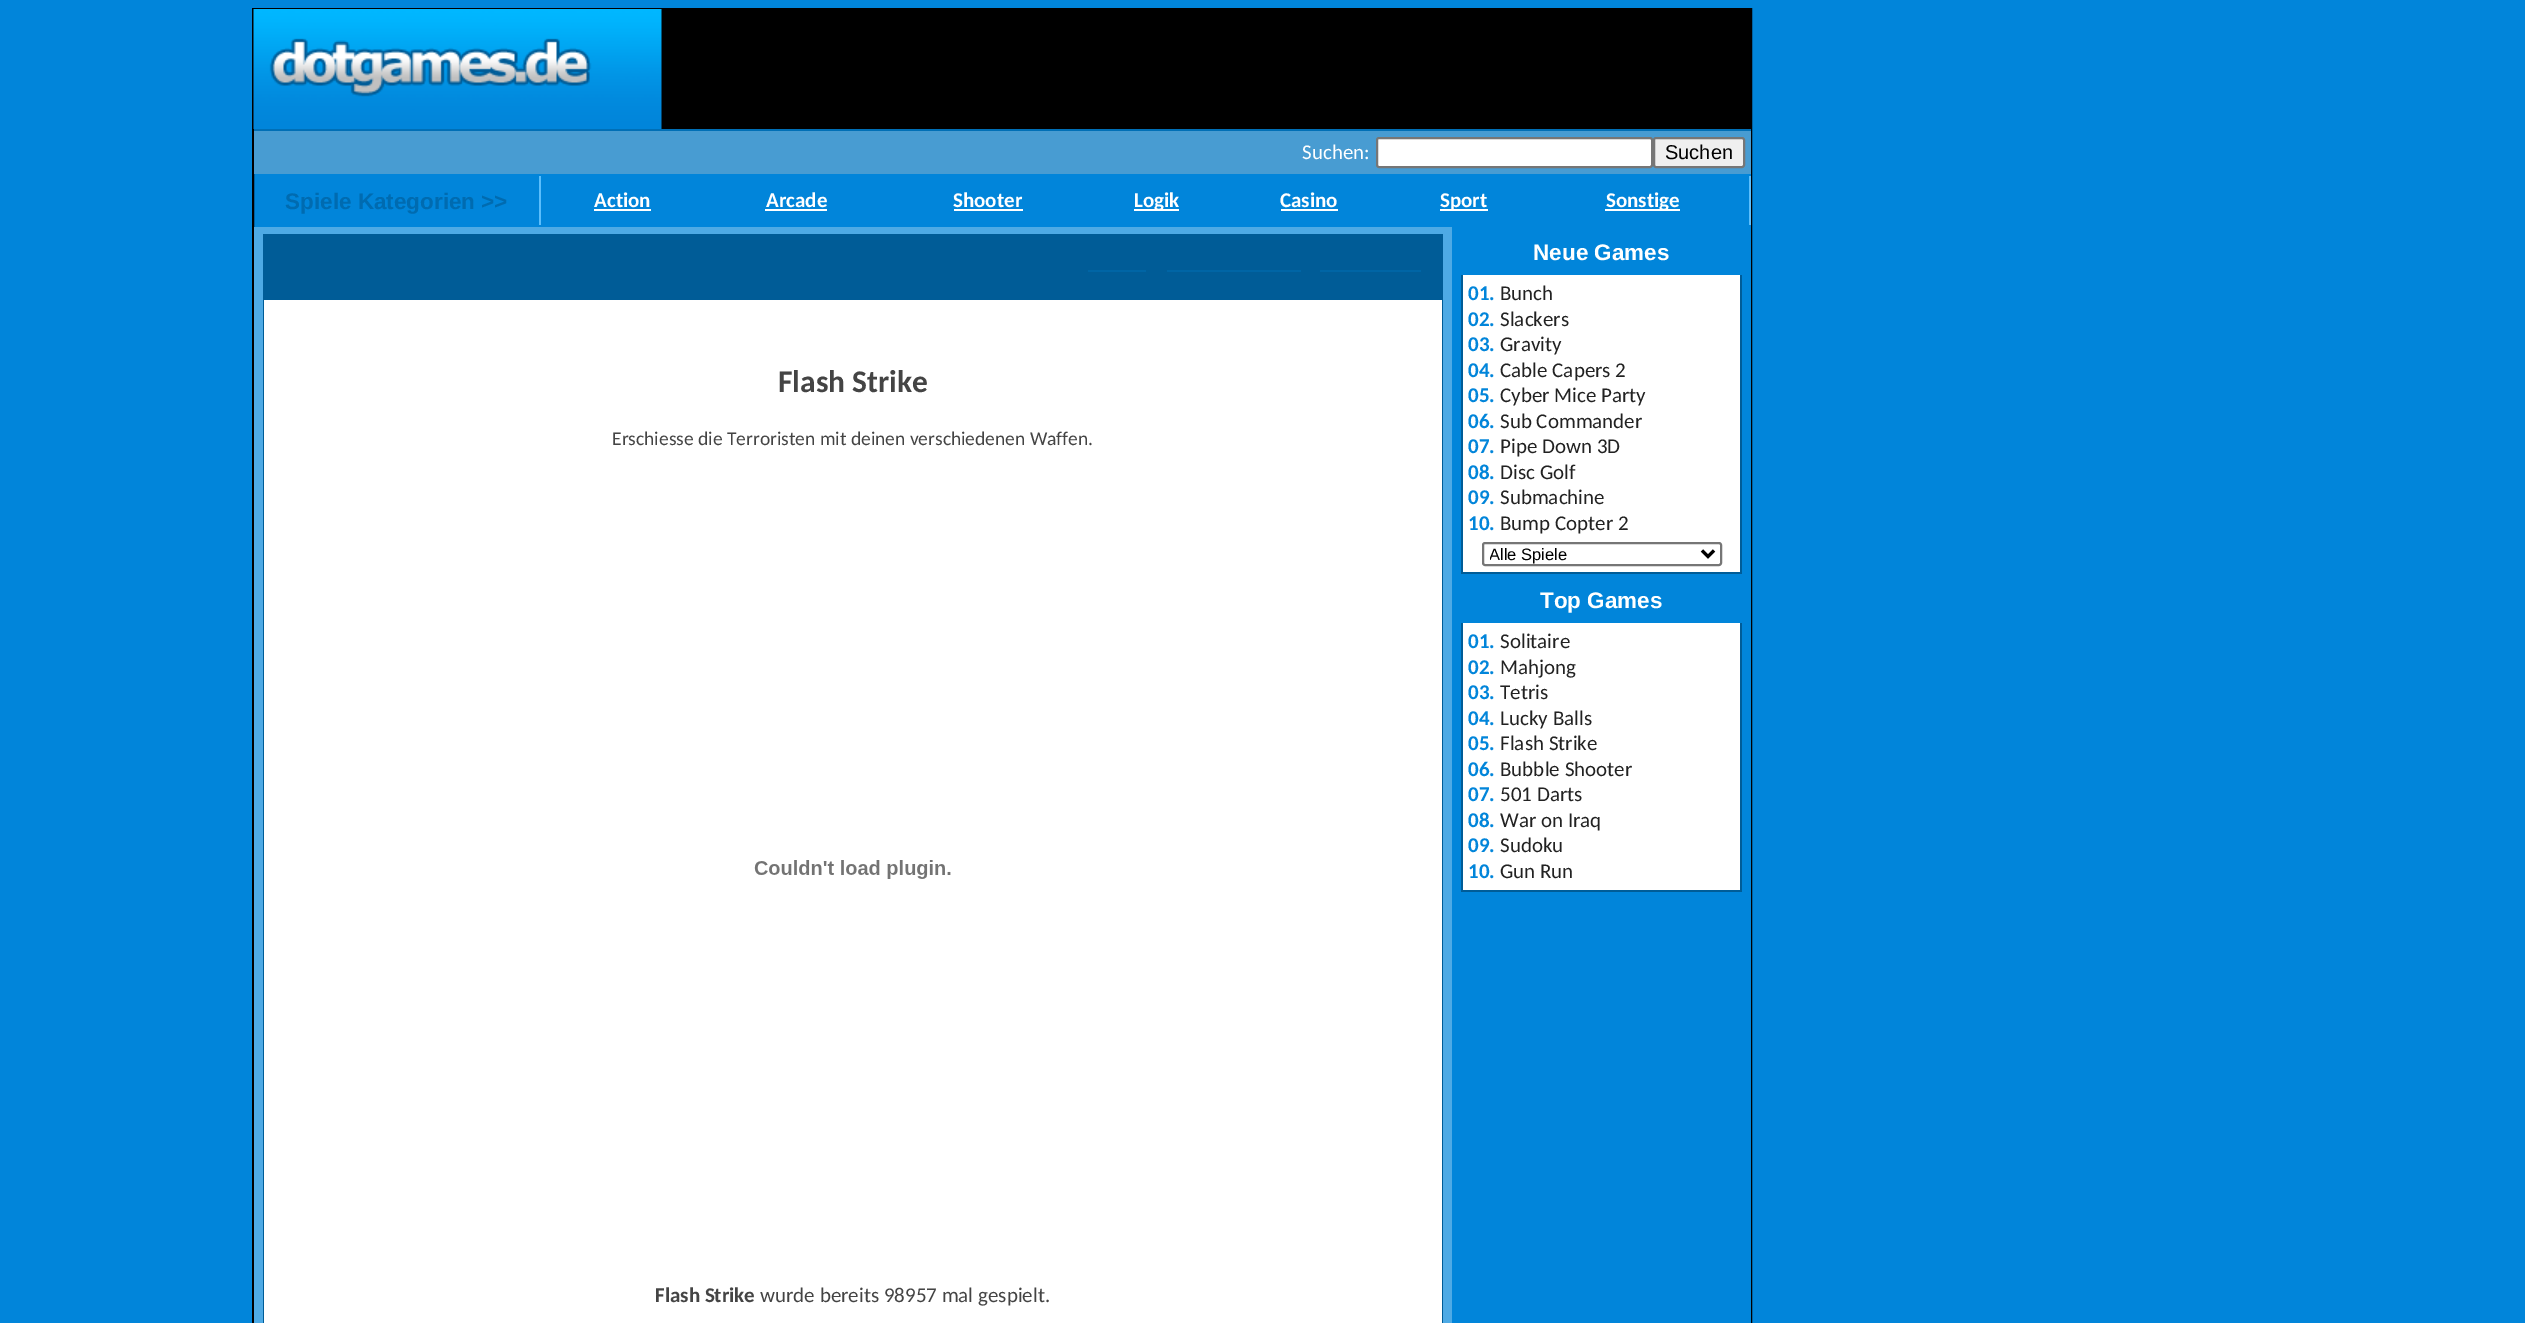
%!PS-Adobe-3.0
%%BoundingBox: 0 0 2525 1323
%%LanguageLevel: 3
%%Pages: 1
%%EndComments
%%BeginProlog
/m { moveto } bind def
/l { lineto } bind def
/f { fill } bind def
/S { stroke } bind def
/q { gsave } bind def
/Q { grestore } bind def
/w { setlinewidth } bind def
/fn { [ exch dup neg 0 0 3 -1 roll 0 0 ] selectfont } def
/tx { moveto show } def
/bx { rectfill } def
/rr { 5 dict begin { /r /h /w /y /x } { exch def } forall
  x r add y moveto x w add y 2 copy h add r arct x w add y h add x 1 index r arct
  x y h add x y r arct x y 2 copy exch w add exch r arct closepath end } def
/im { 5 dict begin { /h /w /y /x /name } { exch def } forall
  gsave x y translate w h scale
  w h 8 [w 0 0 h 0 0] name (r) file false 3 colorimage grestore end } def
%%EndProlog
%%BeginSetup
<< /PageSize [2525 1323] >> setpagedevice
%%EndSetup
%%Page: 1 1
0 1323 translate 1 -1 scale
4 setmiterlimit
0.004 0.522 0.855 setrgbcolor
0 0 2525 1323 bx
0 setgray
2 w
253 9 1498 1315 rectstroke
661 10 1089 119 bx
(image0.raw) 253 9 409 120 im
0.282 0.612 0.824 setrgbcolor
254 131 1497 43 bx
0 0.435 0.714 setrgbcolor
254 129 1497 2 bx
0.004 0.522 0.855 setrgbcolor
1750 174 1 2 bx
/Carlito-Regular 21 fn
1 setgray
(Suchen:) 1302 159 tx
1377 138 275 29 2 rr q f Q
0.463 setgray
S
0.937 setgray
1654 138 90 29 2 rr q f Q
0.463 setgray
S
/LiberationSans-Regular 20 fn
0 setgray
(Suchen) 1665 159 tx
0.004 0.522 0.855 setrgbcolor
1750 225 1 1098 bx
/LiberationSans-Bold 22.5 fn
0 0.42 0.69 setrgbcolor
(Spiele Kategorien >>) 285 209 tx
0.357 0.745 0.988 setrgbcolor
539 176 2 49 bx
/Carlito-Bold 21 fn
1 setgray
(Action) 594 207 tx
594 209 57 2 bx
(Arcade) 766 207 tx
765 209 62 2 bx
(Shooter) 953 207 tx
954 209 69 2 bx
1134 209 45 2 bx
(Logik) 1134 207 tx
(Casino) 1280 207 tx
1281 209 57 2 bx
1440 209 48 2 bx
(Sport) 1440 207 tx
1605 209 75 2 bx
(Sonstige) 1606 207 tx
0.357 0.745 0.988 setrgbcolor
1749 176 2 49 bx
0.306 0.667 0.898 setrgbcolor
254 227 1198 1096 bx
0 0.361 0.592 setrgbcolor
263 234 1180 1089 bx
0 0.396 0.647 setrgbcolor
1088 270 58 2 bx
1167 270 134 2 bx
1320 270 101 2 bx
1 setgray
264 300 1178 1023 bx
/Carlito-Bold 31.5 fn
0.267 setgray
(Flash Strike) 778 392 tx
/Carlito-Regular 19.5 fn
(Erschiesse die Terroristen mit deinen verschiedenen Waffen.) 612 445 tx
(image1.raw) 754 860 197 19 im
/Carlito-Bold 21 fn
(Flash Strike) 655 1302 tx
/Carlito-Regular 21 fn
(wurde bereits 98957 mal gespielt.) 760 1302 tx
/LiberationSans-Bold 22.5 fn
1 setgray
(Neue Games) 1533 260 tx
1463 275 277 297 bx
0 0.361 0.592 setrgbcolor
1740 275 2 298 bx
1461 572 281 2 bx
1461 275 2 298 bx
/Carlito-Bold 21 fn
0.004 0.522 0.855 setrgbcolor
(01.) 1468 300 tx
/Carlito-Regular 21 fn
0.133 setgray
(Bunch) 1500 300 tx
/Carlito-Bold 21 fn
0.004 0.522 0.855 setrgbcolor
(02.) 1468 326 tx
/Carlito-Regular 21 fn
0.133 setgray
(Slackers) 1500 326 tx
/Carlito-Bold 21 fn
0.004 0.522 0.855 setrgbcolor
(03.) 1468 351 tx
/Carlito-Regular 21 fn
0.133 setgray
(Gravity) 1500 351 tx
/Carlito-Bold 21 fn
0.004 0.522 0.855 setrgbcolor
(04.) 1468 377 tx
/Carlito-Regular 21 fn
0.133 setgray
(Cable Capers 2) 1500 377 tx
/Carlito-Bold 21 fn
0.004 0.522 0.855 setrgbcolor
(05.) 1468 402 tx
/Carlito-Regular 21 fn
0.133 setgray
(Cyber Mice Party) 1500 402 tx
/Carlito-Bold 21 fn
0.004 0.522 0.855 setrgbcolor
(06.) 1468 428 tx
/Carlito-Regular 21 fn
0.133 setgray
(Sub Commander) 1500 428 tx
/Carlito-Bold 21 fn
0.004 0.522 0.855 setrgbcolor
(07.) 1468 453 tx
/Carlito-Regular 21 fn
0.133 setgray
(Pipe Down 3D) 1500 453 tx
/Carlito-Bold 21 fn
0.004 0.522 0.855 setrgbcolor
(08.) 1468 479 tx
/Carlito-Regular 21 fn
0.133 setgray
(Disc Golf) 1500 479 tx
/Carlito-Bold 21 fn
0.004 0.522 0.855 setrgbcolor
(09.) 1468 504 tx
/Carlito-Regular 21 fn
0.133 setgray
(Submachine) 1500 504 tx
/Carlito-Bold 21 fn
0.004 0.522 0.855 setrgbcolor
(10.) 1468 530 tx
/Carlito-Regular 21 fn
0.133 setgray
(Bump Copter 2) 1500 530 tx
0.463 setgray
1483 543 238 22 2 rr S
0 setgray
3 w
1702 550.5 m 1708 556.5 l 1714 550.5 l S
q
1490 543 207 21 rectclip
/LiberationSans-Regular 16.5 fn
(Alle Spiele) 1489 560 tx
Q
/LiberationSans-Bold 22.5 fn
1 setgray
(Top Games) 1540 608 tx
1463 623 277 267 bx
0 0.361 0.592 setrgbcolor
1740 623 2 268 bx
1461 890 281 2 bx
1461 623 2 268 bx
/Carlito-Bold 21 fn
0.004 0.522 0.855 setrgbcolor
(01.) 1468 648 tx
/Carlito-Regular 21 fn
0.133 setgray
(Solitaire) 1500 648 tx
/Carlito-Bold 21 fn
0.004 0.522 0.855 setrgbcolor
(02.) 1468 674 tx
/Carlito-Regular 21 fn
0.133 setgray
(Mahjong) 1500 674 tx
/Carlito-Bold 21 fn
0.004 0.522 0.855 setrgbcolor
(03.) 1468 699 tx
/Carlito-Regular 21 fn
0.133 setgray
(Tetris) 1500 699 tx
/Carlito-Bold 21 fn
0.004 0.522 0.855 setrgbcolor
(04.) 1468 725 tx
/Carlito-Regular 21 fn
0.133 setgray
(Lucky Balls) 1500 725 tx
/Carlito-Bold 21 fn
0.004 0.522 0.855 setrgbcolor
(05.) 1468 750 tx
/Carlito-Regular 21 fn
0.133 setgray
(Flash Strike) 1500 750 tx
/Carlito-Bold 21 fn
0.004 0.522 0.855 setrgbcolor
(06.) 1468 776 tx
/Carlito-Regular 21 fn
0.133 setgray
(Bubble Shooter) 1500 776 tx
/Carlito-Bold 21 fn
0.004 0.522 0.855 setrgbcolor
(07.) 1468 801 tx
/Carlito-Regular 21 fn
0.133 setgray
(501 Darts) 1500 801 tx
/Carlito-Bold 21 fn
0.004 0.522 0.855 setrgbcolor
(08.) 1468 827 tx
/Carlito-Regular 21 fn
0.133 setgray
(War on Iraq) 1500 827 tx
/Carlito-Bold 21 fn
0.004 0.522 0.855 setrgbcolor
(09.) 1468 852 tx
/Carlito-Regular 21 fn
0.133 setgray
(Sudoku) 1500 852 tx
/Carlito-Bold 21 fn
0.004 0.522 0.855 setrgbcolor
(10.) 1468 878 tx
/Carlito-Regular 21 fn
0.133 setgray
(Gun Run) 1500 878 tx
showpage
%%EOF
